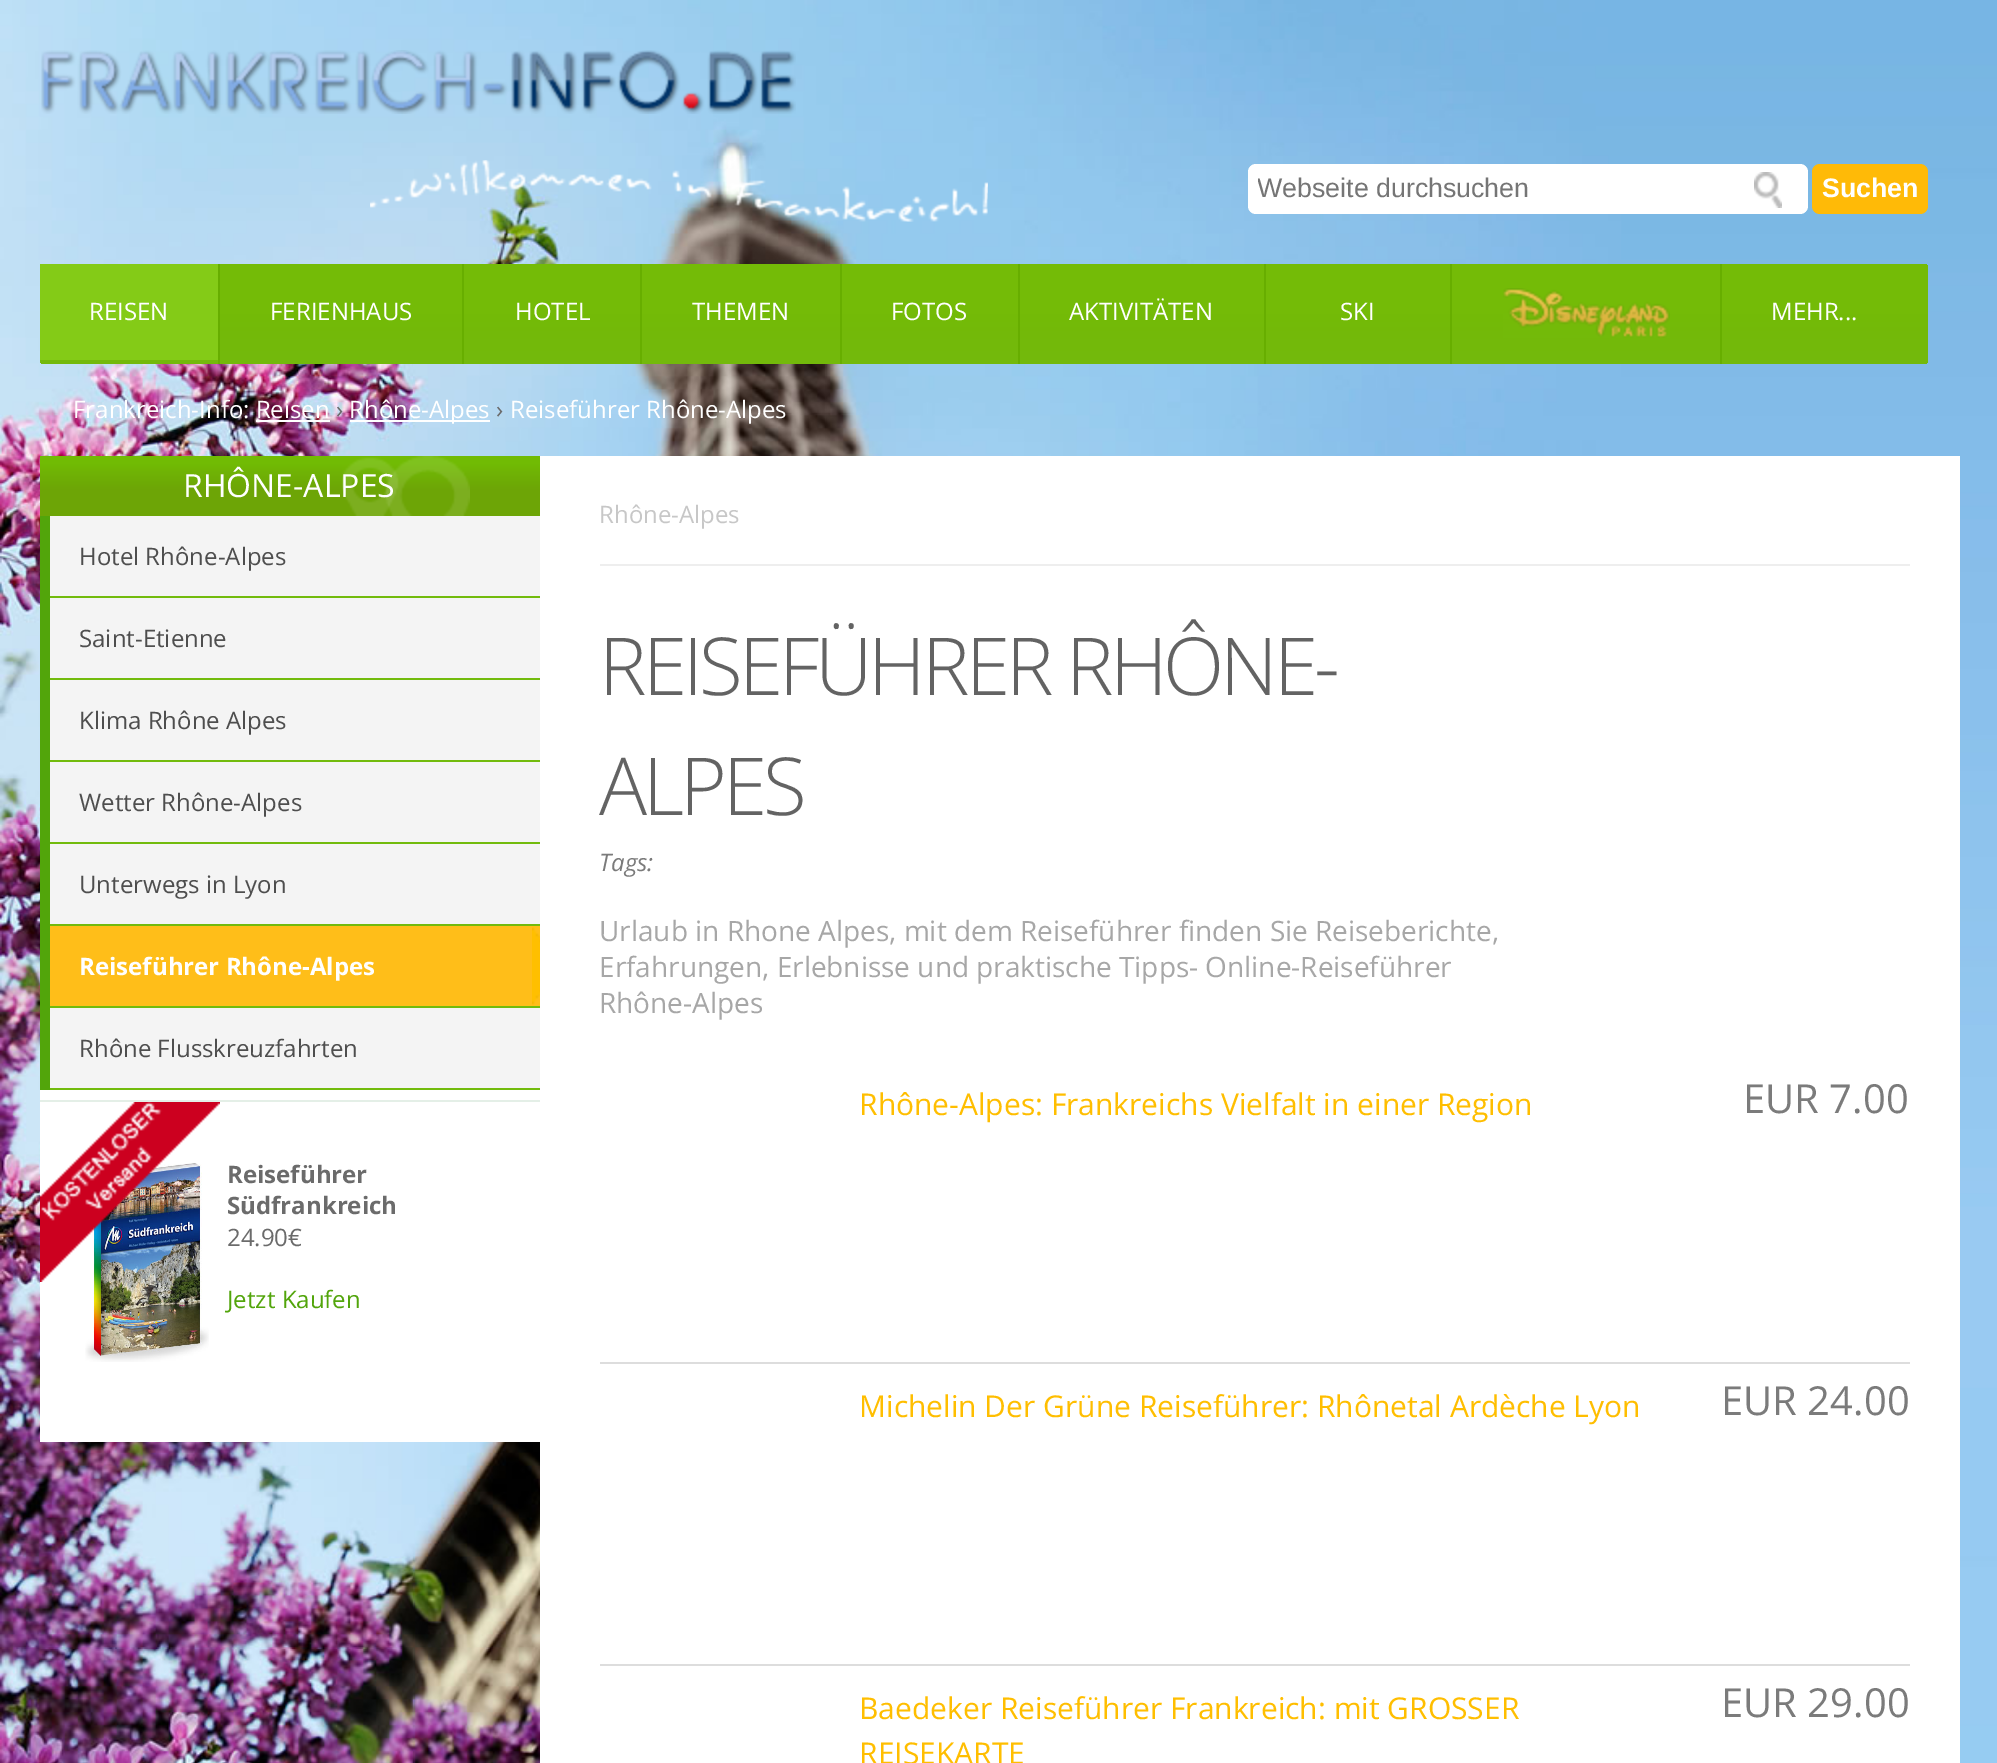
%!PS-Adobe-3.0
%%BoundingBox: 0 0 1997 1763
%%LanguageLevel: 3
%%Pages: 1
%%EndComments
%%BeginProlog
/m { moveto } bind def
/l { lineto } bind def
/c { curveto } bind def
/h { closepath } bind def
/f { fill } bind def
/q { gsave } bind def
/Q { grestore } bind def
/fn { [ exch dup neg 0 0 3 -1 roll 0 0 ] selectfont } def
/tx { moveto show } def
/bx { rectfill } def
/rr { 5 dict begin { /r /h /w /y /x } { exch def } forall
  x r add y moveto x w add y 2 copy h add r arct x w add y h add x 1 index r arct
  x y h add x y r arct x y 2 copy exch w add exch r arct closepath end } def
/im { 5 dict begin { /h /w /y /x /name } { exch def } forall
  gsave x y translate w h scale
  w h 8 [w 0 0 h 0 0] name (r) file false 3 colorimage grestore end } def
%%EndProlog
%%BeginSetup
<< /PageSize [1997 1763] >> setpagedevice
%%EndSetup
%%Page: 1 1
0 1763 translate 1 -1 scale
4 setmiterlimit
1 setgray
0 0 1997 1763 bx
(image0.raw) 0 0 1997 1763 im
1248 164 560 50 8 rr f
(image1.raw) 1754 172 28 36 im
q
1258 174 540 30 rectclip
/LiberationSans-Regular 26.75 fn
0.459 setgray
(Webseite durchsuchen) 1257 197 tx
Q
1 0.729 0.027 setrgbcolor
1812 164 116 50 8 rr f
/LiberationSans-Bold 26.75 fn
1 setgray
(Suchen) 1822 197 tx
(image2.raw) 41 50 755 64 im
(image3.raw) 370 160 618 62 im
q 44 264 m 220 264 l 220 364 l 44 364 l 42 364 40 362 40 360 c 40 268 l 40 266 42 264 44 264 c h clip newpath
<< /ShadingType 2 /ColorSpace /DeviceRGB /Coords [129 364 129 264] /Extend [true true] /Function << /FunctionType 3 /Domain [0 1] /Functions [<< /FunctionType 2 /Domain [0 1] /C0 [0.451 0.725 0.043] /C1 [0.451 0.725 0.043] /N 1 >> << /FunctionType 2 /Domain [0 1] /C0 [0.451 0.725 0.043] /C1 [0.455 0.733 0.027] /N 1 >> << /FunctionType 2 /Domain [0 1] /C0 [0.455 0.733 0.027] /C1 [0.455 0.733 0.027] /N 1 >>] /Bounds [0.12 0.56] /Encode [0 1 0 1 0 1] >> >> shfill Q
0.404 0.682 0 setrgbcolor
218 264 2 100 bx
0.518 0.796 0.09 setrgbcolor
40 264 178 96 bx
/OpenSans-Regular 24 fn
1 setgray
(REISEN) 89 320 tx
q 220 264 m 462 264 l 462 364 l 220 364 l h clip newpath
<< /ShadingType 2 /ColorSpace /DeviceRGB /Coords [341 364 341 264] /Extend [true true] /Function << /FunctionType 3 /Domain [0 1] /Functions [<< /FunctionType 2 /Domain [0 1] /C0 [0.451 0.725 0.043] /C1 [0.451 0.725 0.043] /N 1 >> << /FunctionType 2 /Domain [0 1] /C0 [0.451 0.725 0.043] /C1 [0.455 0.733 0.027] /N 1 >> << /FunctionType 2 /Domain [0 1] /C0 [0.455 0.733 0.027] /C1 [0.455 0.733 0.027] /N 1 >>] /Bounds [0.12 0.56] /Encode [0 1 0 1 0 1] >> >> shfill Q
0.404 0.682 0 setrgbcolor
462 264 2 100 bx
1 setgray
(FERIENHAUS) 270 320 tx
q 464 264 m 640 264 l 640 364 l 464 364 l h clip newpath
<< /ShadingType 2 /ColorSpace /DeviceRGB /Coords [552 364 552 264] /Extend [true true] /Function << /FunctionType 3 /Domain [0 1] /Functions [<< /FunctionType 2 /Domain [0 1] /C0 [0.451 0.725 0.043] /C1 [0.451 0.725 0.043] /N 1 >> << /FunctionType 2 /Domain [0 1] /C0 [0.451 0.725 0.043] /C1 [0.455 0.733 0.027] /N 1 >> << /FunctionType 2 /Domain [0 1] /C0 [0.455 0.733 0.027] /C1 [0.455 0.733 0.027] /N 1 >>] /Bounds [0.12 0.56] /Encode [0 1 0 1 0 1] >> >> shfill Q
0.404 0.682 0 setrgbcolor
640 264 2 100 bx
1 setgray
(HOTEL) 515 320 tx
q 642 264 m 840 264 l 840 364 l 642 364 l h clip newpath
<< /ShadingType 2 /ColorSpace /DeviceRGB /Coords [741 364 741 264] /Extend [true true] /Function << /FunctionType 3 /Domain [0 1] /Functions [<< /FunctionType 2 /Domain [0 1] /C0 [0.451 0.725 0.043] /C1 [0.451 0.725 0.043] /N 1 >> << /FunctionType 2 /Domain [0 1] /C0 [0.451 0.725 0.043] /C1 [0.455 0.733 0.027] /N 1 >> << /FunctionType 2 /Domain [0 1] /C0 [0.455 0.733 0.027] /C1 [0.455 0.733 0.027] /N 1 >>] /Bounds [0.12 0.56] /Encode [0 1 0 1 0 1] >> >> shfill Q
0.404 0.682 0 setrgbcolor
840 264 2 100 bx
1 setgray
(THEMEN) 692 320 tx
q 842 264 m 1018 264 l 1018 364 l 842 364 l h clip newpath
<< /ShadingType 2 /ColorSpace /DeviceRGB /Coords [930 364 930 264] /Extend [true true] /Function << /FunctionType 3 /Domain [0 1] /Functions [<< /FunctionType 2 /Domain [0 1] /C0 [0.451 0.725 0.043] /C1 [0.451 0.725 0.043] /N 1 >> << /FunctionType 2 /Domain [0 1] /C0 [0.451 0.725 0.043] /C1 [0.455 0.733 0.027] /N 1 >> << /FunctionType 2 /Domain [0 1] /C0 [0.455 0.733 0.027] /C1 [0.455 0.733 0.027] /N 1 >>] /Bounds [0.12 0.56] /Encode [0 1 0 1 0 1] >> >> shfill Q
0.404 0.682 0 setrgbcolor
1018 264 2 100 bx
1 setgray
(FOTOS) 891 320 tx
q 1020 264 m 1264 264 l 1264 364 l 1020 364 l h clip newpath
<< /ShadingType 2 /ColorSpace /DeviceRGB /Coords [1142 364 1142 264] /Extend [true true] /Function << /FunctionType 3 /Domain [0 1] /Functions [<< /FunctionType 2 /Domain [0 1] /C0 [0.451 0.725 0.043] /C1 [0.451 0.725 0.043] /N 1 >> << /FunctionType 2 /Domain [0 1] /C0 [0.451 0.725 0.043] /C1 [0.455 0.733 0.027] /N 1 >> << /FunctionType 2 /Domain [0 1] /C0 [0.455 0.733 0.027] /C1 [0.455 0.733 0.027] /N 1 >>] /Bounds [0.12 0.56] /Encode [0 1 0 1 0 1] >> >> shfill Q
0.404 0.682 0 setrgbcolor
1264 264 2 100 bx
1 setgray
(AKTIVITÄTEN) 1069 320 tx
q 1266 264 m 1450 264 l 1450 364 l 1266 364 l h clip newpath
<< /ShadingType 2 /ColorSpace /DeviceRGB /Coords [1358 364 1358 264] /Extend [true true] /Function << /FunctionType 3 /Domain [0 1] /Functions [<< /FunctionType 2 /Domain [0 1] /C0 [0.451 0.725 0.043] /C1 [0.451 0.725 0.043] /N 1 >> << /FunctionType 2 /Domain [0 1] /C0 [0.451 0.725 0.043] /C1 [0.455 0.733 0.027] /N 1 >> << /FunctionType 2 /Domain [0 1] /C0 [0.455 0.733 0.027] /C1 [0.455 0.733 0.027] /N 1 >>] /Bounds [0.12 0.56] /Encode [0 1 0 1 0 1] >> >> shfill Q
0.404 0.682 0 setrgbcolor
1450 264 2 100 bx
1 setgray
(SKI) 1340 320 tx
q 1452 264 m 1720 264 l 1720 364 l 1452 364 l h clip newpath
<< /ShadingType 2 /ColorSpace /DeviceRGB /Coords [1586 364 1586 264] /Extend [true true] /Function << /FunctionType 3 /Domain [0 1] /Functions [<< /FunctionType 2 /Domain [0 1] /C0 [0.451 0.725 0.043] /C1 [0.451 0.725 0.043] /N 1 >> << /FunctionType 2 /Domain [0 1] /C0 [0.451 0.725 0.043] /C1 [0.455 0.733 0.027] /N 1 >> << /FunctionType 2 /Domain [0 1] /C0 [0.455 0.733 0.027] /C1 [0.455 0.733 0.027] /N 1 >>] /Bounds [0.12 0.56] /Encode [0 1 0 1 0 1] >> >> shfill Q
0.404 0.682 0 setrgbcolor
1720 264 2 100 bx
(image4.raw) 1503 288 167 50 im
q 1722 264 m 1924 264 l 1926 264 1928 266 1928 268 c 1928 360 l 1928 362 1926 364 1924 364 c 1722 364 l h clip newpath
<< /ShadingType 2 /ColorSpace /DeviceRGB /Coords [1825 364 1825 264] /Extend [true true] /Function << /FunctionType 3 /Domain [0 1] /Functions [<< /FunctionType 2 /Domain [0 1] /C0 [0.451 0.725 0.043] /C1 [0.451 0.725 0.043] /N 1 >> << /FunctionType 2 /Domain [0 1] /C0 [0.451 0.725 0.043] /C1 [0.455 0.733 0.027] /N 1 >> << /FunctionType 2 /Domain [0 1] /C0 [0.455 0.733 0.027] /C1 [0.455 0.733 0.027] /N 1 >>] /Bounds [0.12 0.56] /Encode [0 1 0 1 0 1] >> >> shfill Q
1 setgray
(MEHR...) 1771 320 tx
(Frankreich-Info: Reisen) 73 418 tx
0.42 setgray
(›) 336 418 tx
1 setgray
256 420 74 2 bx
350 420 140 2 bx
(Rhône-Alpes) 349 418 tx
0.42 setgray
(›) 496 418 tx
1 setgray
(Reiseführer Rhône-Alpes) 510 418 tx
40 1090 500 352 bx
q 40 456 m 540 456 l 540 516 l 40 516 l h clip newpath
<< /ShadingType 2 /ColorSpace /DeviceRGB /Coords [290 456 290 516] /Extend [true true] /Function << /FunctionType 3 /Domain [0 1] /Functions [<< /FunctionType 2 /Domain [0 1] /C0 [0.443 0.733 0.016] /C1 [0.443 0.733 0.016] /N 1 >> << /FunctionType 2 /Domain [0 1] /C0 [0.443 0.733 0.016] /C1 [0.427 0.647 0.024] /N 1 >> << /FunctionType 2 /Domain [0 1] /C0 [0.427 0.647 0.024] /C1 [0.427 0.647 0.024] /N 1 >>] /Bounds [0.12 0.56] /Encode [0 1 0 1 0 1] >> >> shfill Q
(image5.raw) 342 456 128 60 im
/OpenSans-Regular 32 fn
(RHÔNE-ALPES) 183 497 tx
0.322 0.647 0.043 setrgbcolor
40 516 10 574 bx
0.957 setgray
50 516 490 80 bx
0.447 0.733 0.047 setrgbcolor
50 596 490 2 bx
/OpenSans-Regular 24 fn
0.306 setgray
(Hotel Rhône-Alpes) 79 565 tx
0.957 setgray
50 598 490 80 bx
0.447 0.733 0.047 setrgbcolor
50 678 490 2 bx
0.306 setgray
(Saint-Etienne) 79 647 tx
0.957 setgray
50 680 490 80 bx
0.447 0.733 0.047 setrgbcolor
50 760 490 2 bx
0.306 setgray
(Klima Rhône Alpes) 79 729 tx
0.957 setgray
50 762 490 80 bx
0.447 0.733 0.047 setrgbcolor
50 842 490 2 bx
0.306 setgray
(Wetter Rhône-Alpes) 79 811 tx
0.957 setgray
50 844 490 80 bx
0.447 0.733 0.047 setrgbcolor
50 924 490 2 bx
0.306 setgray
(Unterwegs in Lyon) 79 893 tx
0.447 0.733 0.047 setrgbcolor
50 1006 490 2 bx
1 0.745 0.098 setrgbcolor
50 926 490 80 bx
/OpenSans-Bold 24 fn
1 setgray
(Reiseführer Rhône-Alpes) 79 975 tx
(image6.raw) 532 926 8 80 im
0.957 setgray
50 1008 490 80 bx
0.447 0.733 0.047 setrgbcolor
50 1088 490 2 bx
/OpenSans-Regular 24 fn
0.306 setgray
(Rhône Flusskreuzfahrten) 79 1057 tx
0.894 0.937 0.906 setrgbcolor
40 1100 500 2 bx
(image8.raw) 85 1163 124 199 im
(image7.raw) 40 1102 180 180 im
/OpenSans-Bold 24 fn
0.42 setgray
(Reiseführer) 227 1183 tx
(Südfrankreich) 227 1214 tx
/OpenSans-Regular 24 fn
(24.90€) 227 1246 tx
0.322 0.647 0.043 setrgbcolor
(Jetzt Kaufen) 227 1308 tx
1 setgray
540 456 1420 1307 bx
0.933 setgray
600 564 1310 2 bx
0.78 setgray
(Rhône-Alpes) 599 523 tx
/OpenSans-Light 80 fn
0.388 setgray
599 695 m -4 0 (REISEFÜHRER RHÔNE-) ashow
599 815 m -4 0 (ALPES) ashow
/OpenSans-Italic 24 fn
0.482 setgray
(Tags:) 599 871 tx
/OpenSans-Regular 28 fn
0.655 setgray
(Urlaub in Rhone Alpes, mit dem Reiseführer finden Sie Reiseberichte,) 599 941 tx
(Erfahrungen, Erlebnisse und praktische Tipps- Online-Reiseführer) 599 977 tx
(Rhône-Alpes) 599 1013 tx
0.867 setgray
600 1362 1310 2 bx
/OpenSans-Regular 30 fn
1 0.745 0 setrgbcolor
(Rhône-Alpes: Frankreichs Vielfalt in einer Region) 859 1115 tx
/OpenSans-Regular 40 fn
0.482 setgray
(EUR 7.00) 1743 1113 tx
0.867 setgray
600 1664 1310 2 bx
/OpenSans-Regular 30 fn
1 0.745 0 setrgbcolor
(Michelin Der Grüne Reiseführer: Rhônetal Ardèche Lyon) 859 1417 tx
/OpenSans-Regular 40 fn
0.482 setgray
(EUR 24.00) 1721 1415 tx
/OpenSans-Regular 30 fn
1 0.745 0 setrgbcolor
(Baedeker Reiseführer Frankreich: mit GROSSER) 859 1719 tx
(REISEKARTE) 859 1764 tx
/OpenSans-Regular 40 fn
0.482 setgray
(EUR 29.00) 1721 1717 tx
showpage
%%EOF
